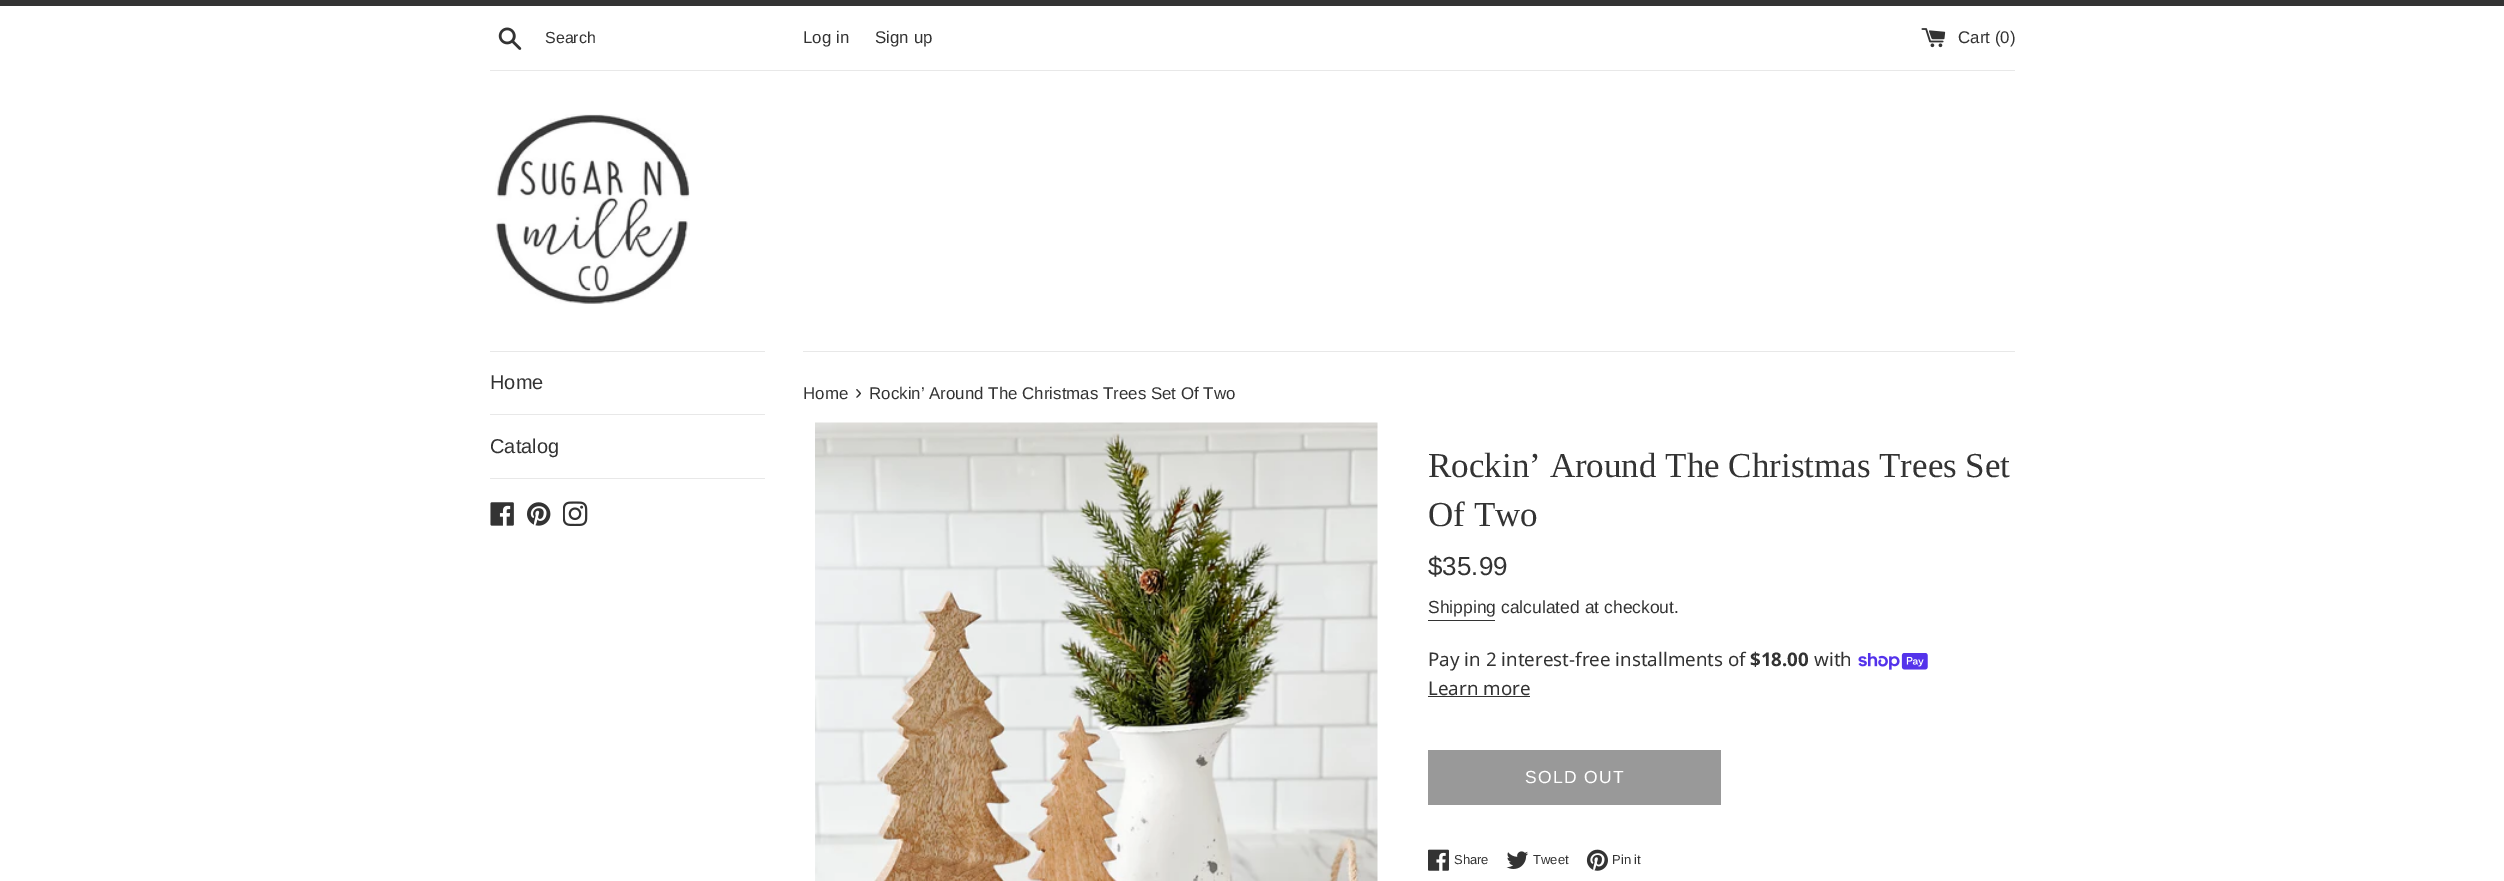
%!PS-Adobe-3.0
%%BoundingBox: 0 0 2504 881
%%LanguageLevel: 3
%%Pages: 1
%%EndComments
%%BeginProlog
/m { moveto } bind def
/fn { [ exch dup neg 0 0 3 -1 roll 0 0 ] selectfont } def
/tx { moveto show } def
/bx { rectfill } def
/im { 5 dict begin { /h /w /y /x /name } { exch def } forall
  gsave x y translate w h scale
  w h 8 [w 0 0 h 0 0] name (r) file false 3 colorimage grestore end } def
%%EndProlog
%%BeginSetup
<< /PageSize [2504 881] >> setpagedevice
%%EndSetup
%%Page: 1 1
0 881 translate 1 -1 scale
4 setmiterlimit
1 setgray
0 0 2504 881 bx
0.2 setgray
0 0 2504 6 bx
(image0.raw) 498 27 24 23 im
/LiberationSans-Regular 16 fn
(Search) 545 43 tx
/LiberationSans-Regular 16.9 fn
(Log in) 803 43 tx
(Sign up) 875 43 tx
(image1.raw) 1921 28 25 20 im
(Cart \(0\)) 1958 43 tx
0.91 setgray
490 70 1525 1 bx
(image2.raw) 495 114 195 190 im
490 351 275 1 bx
490 414 275 1 bx
/LiberationSans-Regular 20 fn
0.2 setgray
(Home) 490 389 tx
0.91 setgray
490 478 275 1 bx
0.2 setgray
(Catalog) 490 453 tx
(image3.raw) 490 502 24 24 im
(image4.raw) 527 502 24 24 im
(image5.raw) 563 501 25 25 im
0.91 setgray
803 351 1212 1 bx
/LiberationSans-Regular 16.9 fn
0.2 setgray
(Home) 803 399 tx
/LiberationSans-Regular 21 fn
(›) 855 399 tx
/LiberationSans-Regular 16.9 fn
(Rockin’ Around The Christmas Trees Set Of Two) 869 399 tx
(image6.raw) 815 422 563 459 im
/LiberationSerif-Regular 35 fn
(Rockin’ Around The Christmas Trees Set) 1428 477 tx
(Of Two) 1428 526 tx
/LiberationSans-Regular 26 fn
($35.99) 1428 575 tx
/LiberationSans-Regular 17.5 fn
(Shipping calculated at checkout.) 1428 613 tx
1428 620 67 1 bx
/NotoSans-Regular 18.75 fn
(Pay in 2 interest-free installments of) 1428 666 tx
/NotoSans-Bold 18.75 fn
($18.00) 1750 666 tx
/NotoSans-Regular 18.75 fn
(with) 1814 666 tx
(image7.raw) 1858 653 70 17 im
(Learn more) 1428 695 tx
1428 696 102 1 bx
0.6 setgray
1428 750 293 55 bx
/LiberationSans-Regular 17.5 fn
1 setgray
1525 783 m 1.25 0 (SOLD OUT) ashow
(image8.raw) 1428 849 21 22 im
/LiberationSans-Regular 13 fn
0.2 setgray
(Share) 1454 864 tx
(image9.raw) 1506 851 23 18 im
(Tweet) 1533 864 tx
(image10.raw) 1586 849 22 22 im
(Pin it) 1612 864 tx
showpage
%%EOF
